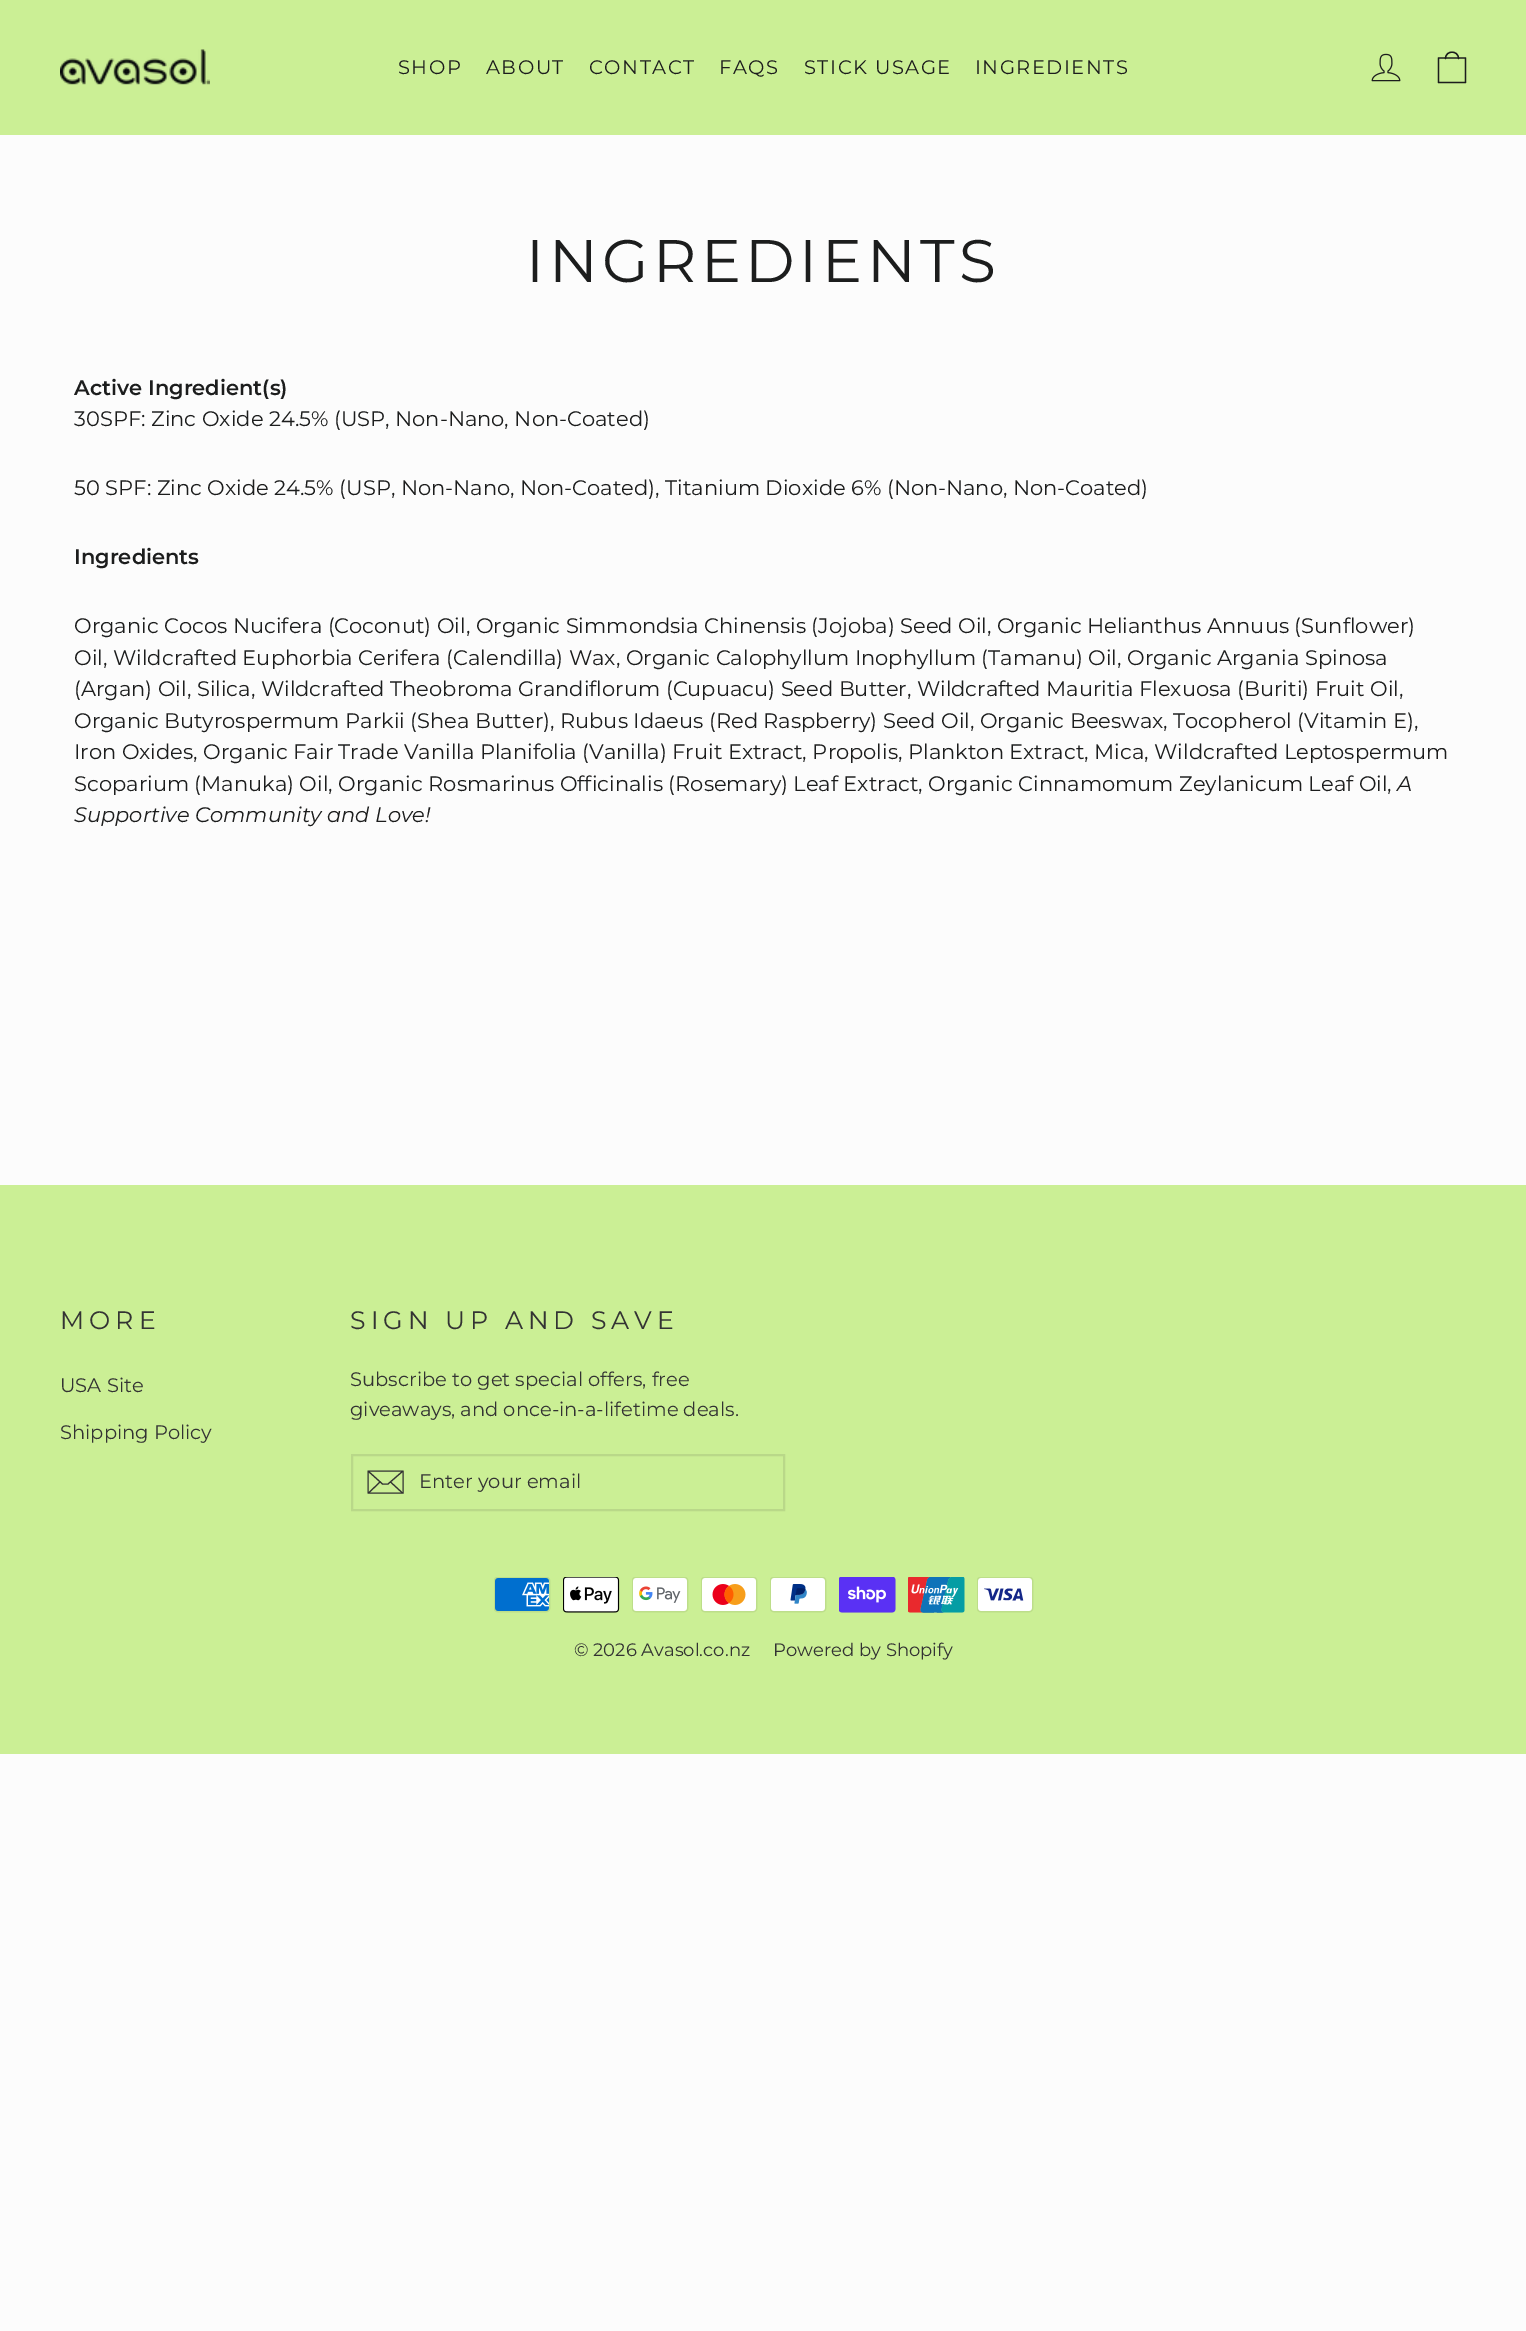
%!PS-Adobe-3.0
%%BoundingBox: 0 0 1526 2331
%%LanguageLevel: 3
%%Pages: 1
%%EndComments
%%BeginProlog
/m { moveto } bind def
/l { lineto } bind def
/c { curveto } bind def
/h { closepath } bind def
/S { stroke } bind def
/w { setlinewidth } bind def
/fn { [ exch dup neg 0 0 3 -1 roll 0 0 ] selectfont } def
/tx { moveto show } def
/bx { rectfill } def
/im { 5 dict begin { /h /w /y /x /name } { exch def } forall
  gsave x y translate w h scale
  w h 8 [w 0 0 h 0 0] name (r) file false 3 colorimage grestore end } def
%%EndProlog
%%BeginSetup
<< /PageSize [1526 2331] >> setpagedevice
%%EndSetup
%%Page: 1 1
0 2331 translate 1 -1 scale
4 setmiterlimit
0.988 setgray
0 0 1526 2331 bx
0.796 0.937 0.584 setrgbcolor
0 0 1526 135 bx
(image0.raw) 60 49 150 36 im
/Montserrat-Regular 19.5 fn
0.11 0.114 0.114 setrgbcolor
398 74 m 1.5 0 (SHOP) ashow
486 74 m 1.5 0 (ABOUT) ashow
589 74 m 1.5 0 (CONTACT) ashow
719 74 m 1.5 0 (FAQS) ashow
804 74 m 1.5 0 (STICK USAGE) ashow
975 74 m 1.5 0 (INGREDIENTS) ashow
(image1.raw) 1371 53 30 29 im
1.3 w
1 setlinecap
1 setlinejoin
1438.5 58 m 1465.5 58 l 1465.5 82.5 l 1438.5 82.5 l h 1445.5 58.5 m 1445.5 50 1458.5 50 1458.5 58.5 c S
/Montserrat-Regular 60 fn
526 282 m 4.5 0 (INGREDIENTS) ashow
/Montserrat-SemiBold 21 fn
(Active Ingredient\(s\)) 74 395 tx
/Montserrat-Regular 21 fn
(30SPF: Zinc Oxide 24.5% \(USP, Non-Nano, Non-Coated\)) 74 426 tx
(50 SPF: Zinc Oxide 24.5% \(USP, Non-Nano, Non-Coated\), Titanium Dioxide 6% \(Non-Nano, Non-Coated\)) 74 495 tx
/Montserrat-SemiBold 21 fn
(Ingredients) 74 564 tx
/Montserrat-Regular 21 fn
(Organic Cocos Nucifera \(Coconut\) Oil, Organic Simmondsia Chinensis \(Jojoba\) Seed Oil, Organic Helianthus Annuus \(Sunflower\)) 74 633 tx
(Oil, Wildcrafted Euphorbia Cerifera \(Calendilla\) Wax, Organic Calophyllum Inophyllum \(Tamanu\) Oil, Organic Argania Spinosa) 74 665 tx
(\(Argan\) Oil, Silica, Wildcrafted Theobroma Grandiflorum \(Cupuacu\) Seed Butter, Wildcrafted Mauritia Flexuosa \(Buriti\) Fruit Oil,) 74 696 tx
(Organic Butyrospermum Parkii \(Shea Butter\), Rubus Idaeus \(Red Raspberry\) Seed Oil, Organic Beeswax, Tocopherol \(Vitamin E\),) 74 728 tx
(Iron Oxides, Organic Fair Trade Vanilla Planifolia \(Vanilla\) Fruit Extract, Propolis, Plankton Extract, Mica, Wildcrafted Leptospermum) 74 759 tx
(Scoparium \(Manuka\) Oil, Organic Rosmarinus Officinalis \(Rosemary\) Leaf Extract, Organic Cinnamomum Zeylanicum Leaf Oil,) 74 791 tx
/Montserrat-Italic 21 fn
(A) 1397 791 tx
(Supportive Community and Love!) 74 822 tx
0.796 0.937 0.584 setrgbcolor
0 1185 1526 569 bx
/Montserrat-Regular 25.25 fn
0.2 setgray
60 1329 m 5 0 (MORE) ashow
/Montserrat-Regular 19.5 fn
(USA Site) 60 1392 tx
(Shipping Policy) 60 1439 tx
/Montserrat-Regular 25.25 fn
350 1329 m 5 0 (SIGN UP AND SAVE) ashow
/Montserrat-Regular 19.5 fn
(Subscribe to get special offers, free) 350 1386 tx
(giveaways, and once-in-a-lifetime deals.) 350 1416 tx
0.725 0.847 0.537 setrgbcolor
2 w
0 setlinecap
0 setlinejoin
352 1455 432 55 rectstroke
0.2 setgray
1.1 w
1 setlinecap
1 setlinejoin
403 1493 m 368 1493 l 368 1471 l 403 1471 l h 368 1471 m 382.5 1484 l 388 1484 l 403 1471 l 380 1482 m 368.5 1493 l 402.5 1493 m 390.5 1482 l S
(Enter your email) 419 1488 tx
(image2.raw) 494 1577 57 36 im
(image3.raw) 563 1577 57 36 im
(image4.raw) 632 1577 57 36 im
(image5.raw) 701 1577 57 36 im
(image6.raw) 770 1577 57 36 im
(image7.raw) 839 1577 57 36 im
(image8.raw) 908 1577 57 36 im
(image9.raw) 977 1577 57 36 im
/Montserrat-Regular 18 fn
(© 2026 Avasol.co.nz) 574 1656 tx
(Powered by Shopify) 773 1656 tx
showpage
%%EOF
